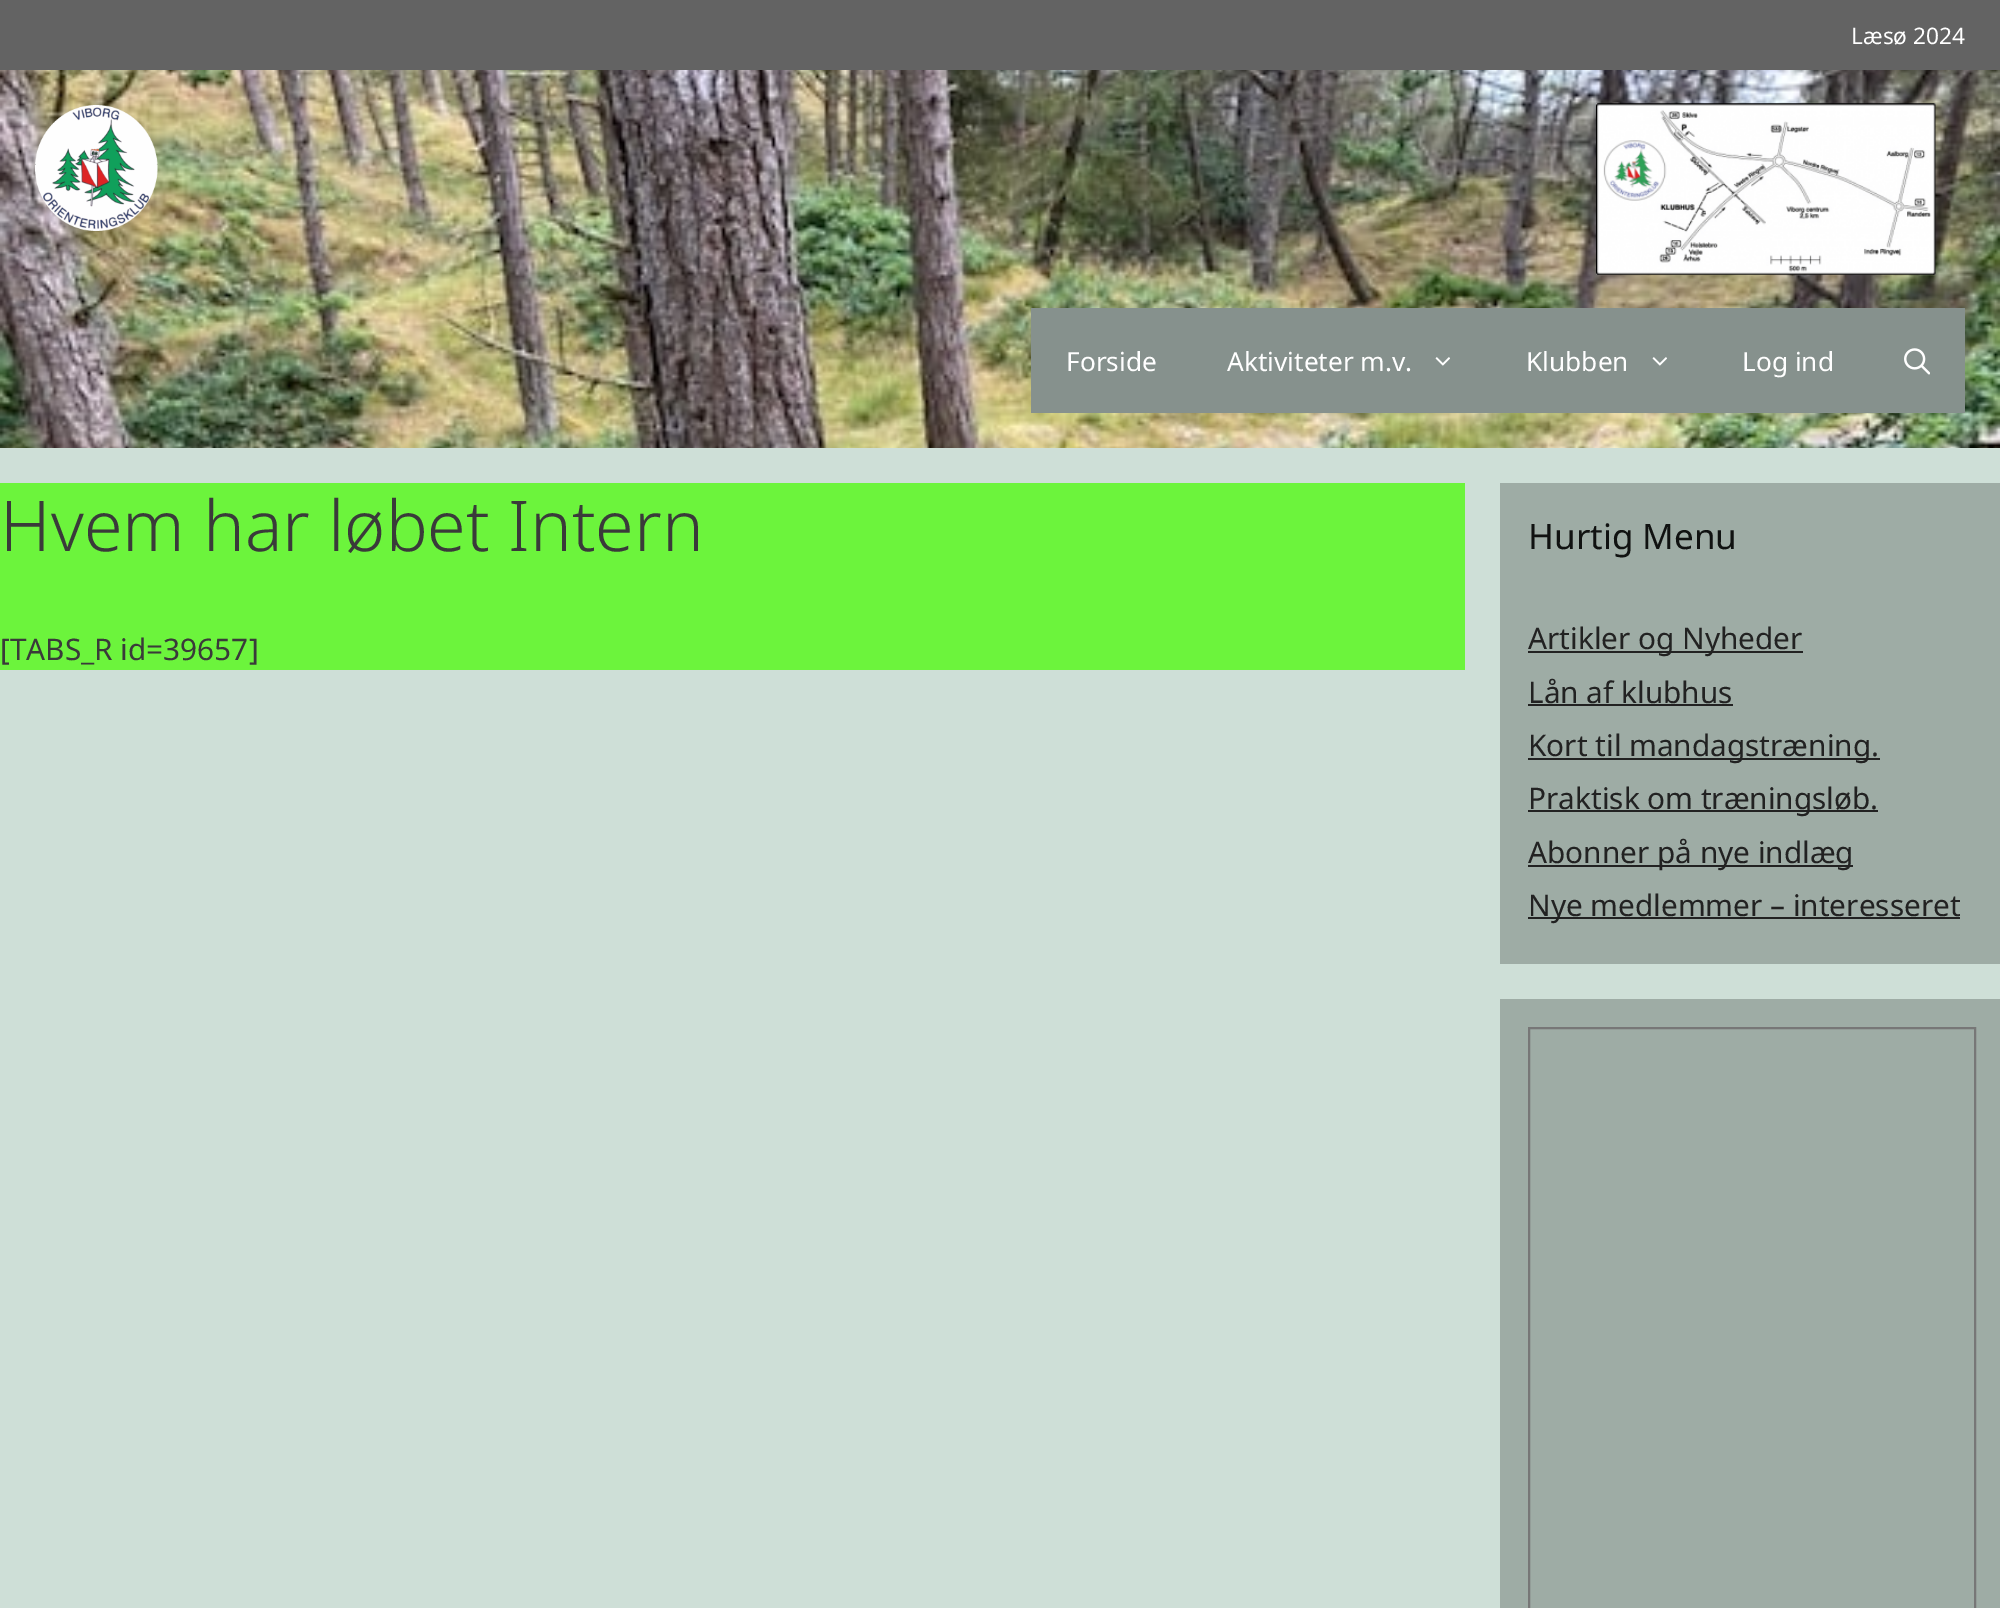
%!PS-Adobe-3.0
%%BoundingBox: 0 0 2000 1608
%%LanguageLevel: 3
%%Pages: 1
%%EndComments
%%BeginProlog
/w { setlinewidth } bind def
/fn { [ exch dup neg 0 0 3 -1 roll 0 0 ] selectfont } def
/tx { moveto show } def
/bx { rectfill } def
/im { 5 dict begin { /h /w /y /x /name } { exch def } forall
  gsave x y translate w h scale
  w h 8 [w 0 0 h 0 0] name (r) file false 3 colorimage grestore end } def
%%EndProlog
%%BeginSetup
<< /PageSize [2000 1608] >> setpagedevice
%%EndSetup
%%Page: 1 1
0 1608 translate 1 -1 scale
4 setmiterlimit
0.808 0.875 0.843 setrgbcolor
0 0 2000 1608 bx
0.388 setgray
0 0 2000 70 bx
/NotoSans-Regular 22.75 fn
1 setgray
(Læsø 2024) 1851 44 tx
(image0.raw) 0 70 2000 378 im
(image1.raw) 35 105 123 126 im
(image2.raw) 1596 103 340 172 im
0.525 0.569 0.553 setrgbcolor
1031 308 934 105 bx
/NotoSans-Regular 26.25 fn
1 setgray
(Forside) 1066 371 tx
(Aktiviteter m.v.) 1227 371 tx
(image3.raw) 1435 357 15 9 im
(Klubben) 1526 371 tx
(image3.raw) 1652 357 15 9 im
(Log ind) 1742 371 tx
(image4.raw) 1904 348 26 27 im
0.424 0.957 0.235 setrgbcolor
0 483 1465 187 bx
/NotoSans-Light 70 fn
0.227 setgray
(Hvem har løbet Intern) 0 551 tx
/NotoSans-Regular 29.75 fn
([TABS_R id=39657]) 0 660 tx
0.62 0.675 0.647 setrgbcolor
1500 483 500 481 bx
/NotoSans-Regular 35 fn
0.063 0.071 0.067 setrgbcolor
(Hurtig Menu) 1528 549 tx
0.133 setgray
1528 651 275 2 bx
/NotoSans-Regular 29.75 fn
(Artikler og Nyheder) 1528 649 tx
(Lån af klubhus) 1528 703 tx
1528 704 205 2 bx
1528 758 352 2 bx
(Kort til mandagstræning.) 1528 756 tx
1528 810 350 2 bx
(Praktisk om træningsløb.) 1528 809 tx
1528 865 325 2 bx
(Abonner på nye indlæg) 1528 863 tx
1528 917 432 2 bx
(Nye medlemmer – interesseret) 1528 916 tx
0.62 0.675 0.647 setrgbcolor
1500 999 500 609 bx
0.467 setgray
2 w
1529 1028 446 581 rectstroke
showpage
%%EOF
